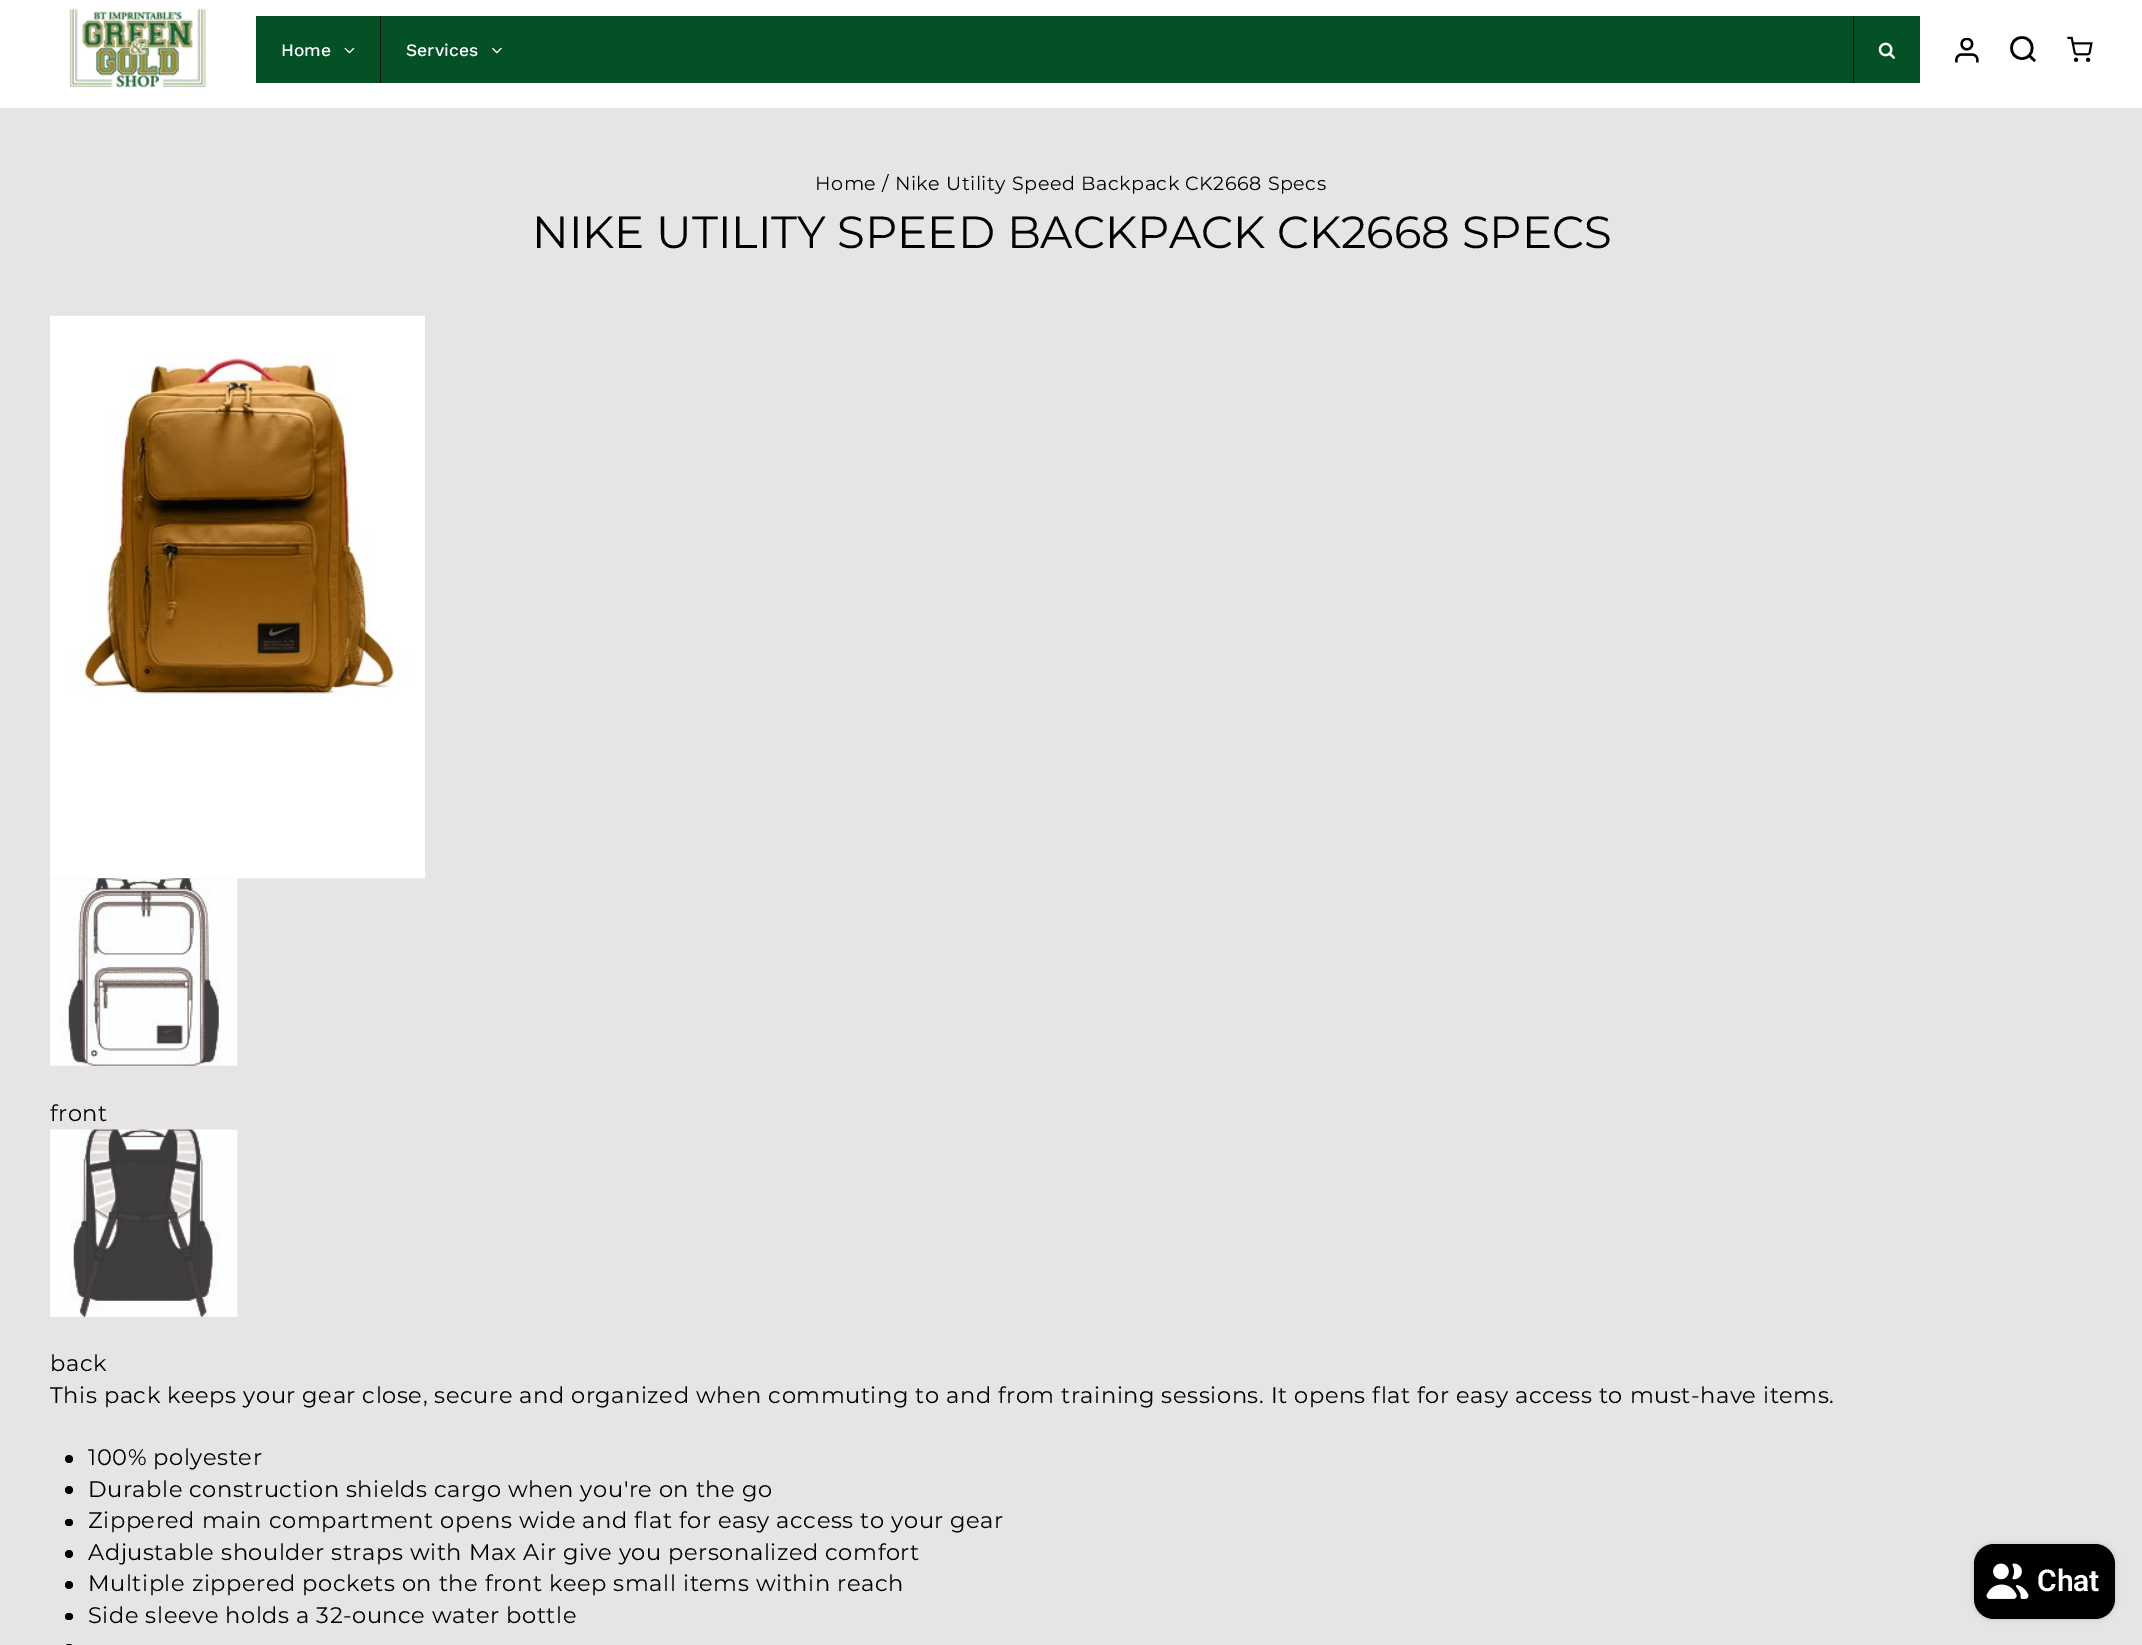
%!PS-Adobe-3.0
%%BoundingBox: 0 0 2142 1645
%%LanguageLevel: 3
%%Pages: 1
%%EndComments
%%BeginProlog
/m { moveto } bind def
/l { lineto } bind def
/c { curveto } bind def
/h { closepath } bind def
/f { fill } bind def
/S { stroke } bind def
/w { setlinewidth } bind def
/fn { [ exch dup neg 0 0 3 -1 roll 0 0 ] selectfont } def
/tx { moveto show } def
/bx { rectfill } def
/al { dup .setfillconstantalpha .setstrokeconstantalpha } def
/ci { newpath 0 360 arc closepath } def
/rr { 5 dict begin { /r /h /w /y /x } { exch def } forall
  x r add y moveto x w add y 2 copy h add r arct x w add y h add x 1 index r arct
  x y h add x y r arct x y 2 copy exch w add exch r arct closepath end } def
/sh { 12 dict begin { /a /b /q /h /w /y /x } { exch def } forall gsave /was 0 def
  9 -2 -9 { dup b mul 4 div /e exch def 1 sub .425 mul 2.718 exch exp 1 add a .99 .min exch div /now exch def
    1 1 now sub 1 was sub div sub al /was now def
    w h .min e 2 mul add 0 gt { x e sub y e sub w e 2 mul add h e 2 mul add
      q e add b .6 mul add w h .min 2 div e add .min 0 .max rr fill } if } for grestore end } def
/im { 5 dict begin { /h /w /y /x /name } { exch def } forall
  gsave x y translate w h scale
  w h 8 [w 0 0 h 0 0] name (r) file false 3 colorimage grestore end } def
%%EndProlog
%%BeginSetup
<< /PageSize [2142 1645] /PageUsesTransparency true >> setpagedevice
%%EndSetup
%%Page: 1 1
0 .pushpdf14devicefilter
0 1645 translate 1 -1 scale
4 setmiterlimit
0.902 0.894 0.894 setrgbcolor
0 0 2142 1645 bx
1 setgray
0 0 2142 108 bx
(image0.raw) 69 8 138 80 im
0.012 0.318 0.141 setrgbcolor
256 16 1664 67 bx
/WorkSans-Medium 17.5 fn
1 setgray
(Home) 281 56 tx
(image1.raw) 344 47 11 7 im
0.059 setgray
380 16 1 67 bx
1 setgray
(Services) 406 56 tx
(image2.raw) 492 47 10 7 im
0.059 setgray
1853 16 1 67 bx
(image3.raw) 1878 42 17 17 im
(image4.raw) 1955 38 24 25 im
0 setgray
2.6 w
2022 58.5 m 2035.5 58.5 2035.5 37.5 2022 37.5 c 2008 37.5 2008 58.5 2022 58.5 c h 2035 61 m 2029 55.5 l S
(image5.raw) 2067 36 26 26 im
/Montserrat-Regular 19.1 fn
815 190 m 0.56 0 (Home / Nike Utility Speed Backpack CK2668 Specs) ashow
/Montserrat-Regular 45 fn
(NIKE UTILITY SPEED BACKPACK CK2668 SPECS) 532 248 tx
(image6.raw) 50 315 375 564 im
(image7.raw) 50 878 188 188 im
/Montserrat-Regular 22.5 fn
50 1121 m 0.56 0 (front) ashow
(image8.raw) 50 1129 188 188 im
50 1371 m 0.56 0 (back) ashow
50 1403 m 0.56 0 (This pack keeps your gear close, secure and organized when commuting to and from training sessions. It opens flat for easy access to must-have items.) ashow
69 1459 4 ci f
88 1465 m 0.56 0 (100% polyester) ashow
69 1490 4 ci f
88 1497 m 0.56 0 (Durable construction shields cargo when you're on the go) ashow
65 1519 8 7 3.5 rr f
88 1528 m 0.56 0 (Zippered main compartment opens wide and flat for easy access to your gear) ashow
69 1554 4 ci f
88 1560 m 0.56 0 (Adjustable shoulder straps with Max Air give you personalized comfort) ashow
69 1585 4 ci f
88 1591 m 0.56 0 (Multiple zippered pockets on the front keep small items within reach) ashow
65 1613 8 7 3.5 rr f
88 1623 m 0.56 0 (Side sleeve holds a 32-ounce water bottle) ashow
65 1644 8 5 3.5 rr f
1974 1544 141 75 20 3 0.15 sh
1974 1544 141 75 20 rr f
(image9.raw) 1986 1563 43 36 im
/Roboto-SemiBold 30 fn
1 setgray
(Chat) 2037 1591 tx
.poppdf14devicefilter showpage
%%EOF
